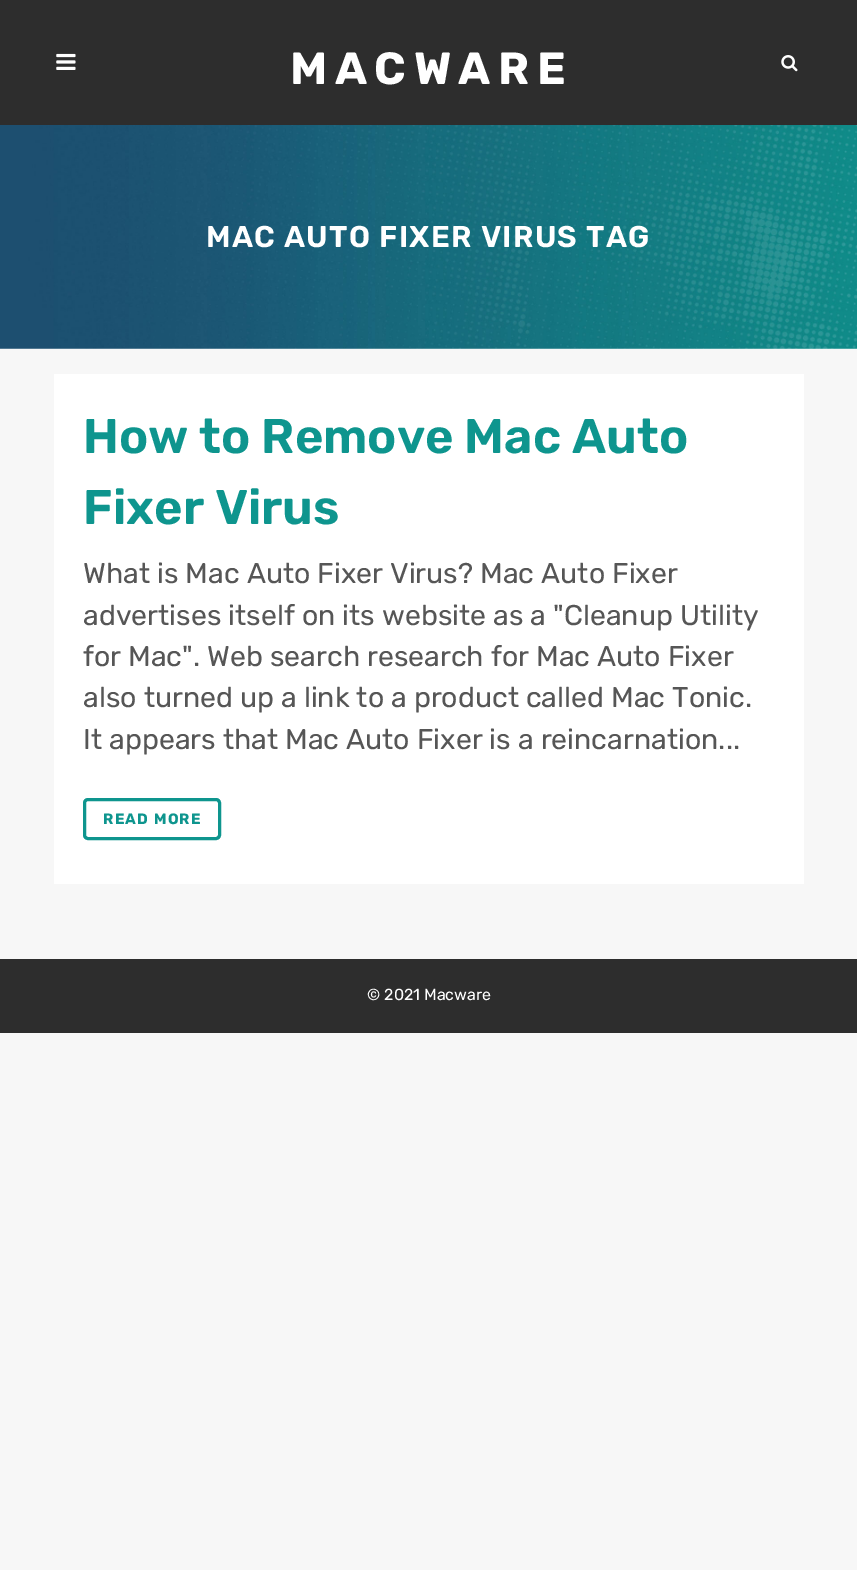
%!PS-Adobe-3.0
%%BoundingBox: 0 0 857 1570
%%LanguageLevel: 3
%%Pages: 1
%%EndComments
%%BeginProlog
/m { moveto } bind def
/S { stroke } bind def
/w { setlinewidth } bind def
/fn { [ exch dup neg 0 0 3 -1 roll 0 0 ] selectfont } def
/tx { moveto show } def
/bx { rectfill } def
/rr { 5 dict begin { /r /h /w /y /x } { exch def } forall
  x r add y moveto x w add y 2 copy h add r arct x w add y h add x 1 index r arct
  x y h add x y r arct x y 2 copy exch w add exch r arct closepath end } def
/im { 5 dict begin { /h /w /y /x /name } { exch def } forall
  gsave x y translate w h scale
  w h 8 [w 0 0 h 0 0] name (r) file false 3 colorimage grestore end } def
%%EndProlog
%%BeginSetup
<< /PageSize [857 1570] >> setpagedevice
%%EndSetup
%%Page: 1 1
0 1570 translate 1 -1 scale
4 setmiterlimit
0.969 setgray
0 0 857 1570 bx
0.176 setgray
0 0 857 125 bx
(image0.raw) 56 53 20 17 im
/Rubik-Bold 45 fn
1 setgray
290 84 m 7.5 0 (MACWARE) ashow
(image1.raw) 781 55 17 17 im
(image2.raw) 0 125 857 224 im
/Rubik-SemiBold 30 fn
206 247 m 1.25 0 (MAC AUTO FIXER VIRUS TAG) ashow
54 374 750 510 bx
/Rubik-SemiBold 48.75 fn
0.055 0.584 0.557 setrgbcolor
(How to Remove Mac Auto) 83 453 tx
(Fixer Virus) 83 524 tx
/Rubik-Regular 28.5 fn
0.337 setgray
(What is Mac Auto Fixer Virus? Mac Auto Fixer) 83 583 tx
(advertises itself on its website as a "Cleanup Utility) 83 625 tx
(for Mac". Web search research for Mac Auto Fixer) 83 666 tx
(also turned up a link to a product called Mac Tonic.) 83 707 tx
(It appears that Mac Auto Fixer is a reincarnation...) 83 749 tx
0.055 0.584 0.557 setrgbcolor
3 w
84.5 799.5 135 39 3.5 rr S
/Rubik-Bold 15 fn
103 824 m 1.25 0 (READ MORE) ashow
0.176 setgray
0 959 857 74 bx
/Rubik-Regular 16 fn
1 setgray
(© 2021 Macware) 367 1000 tx
showpage
%%EOF
